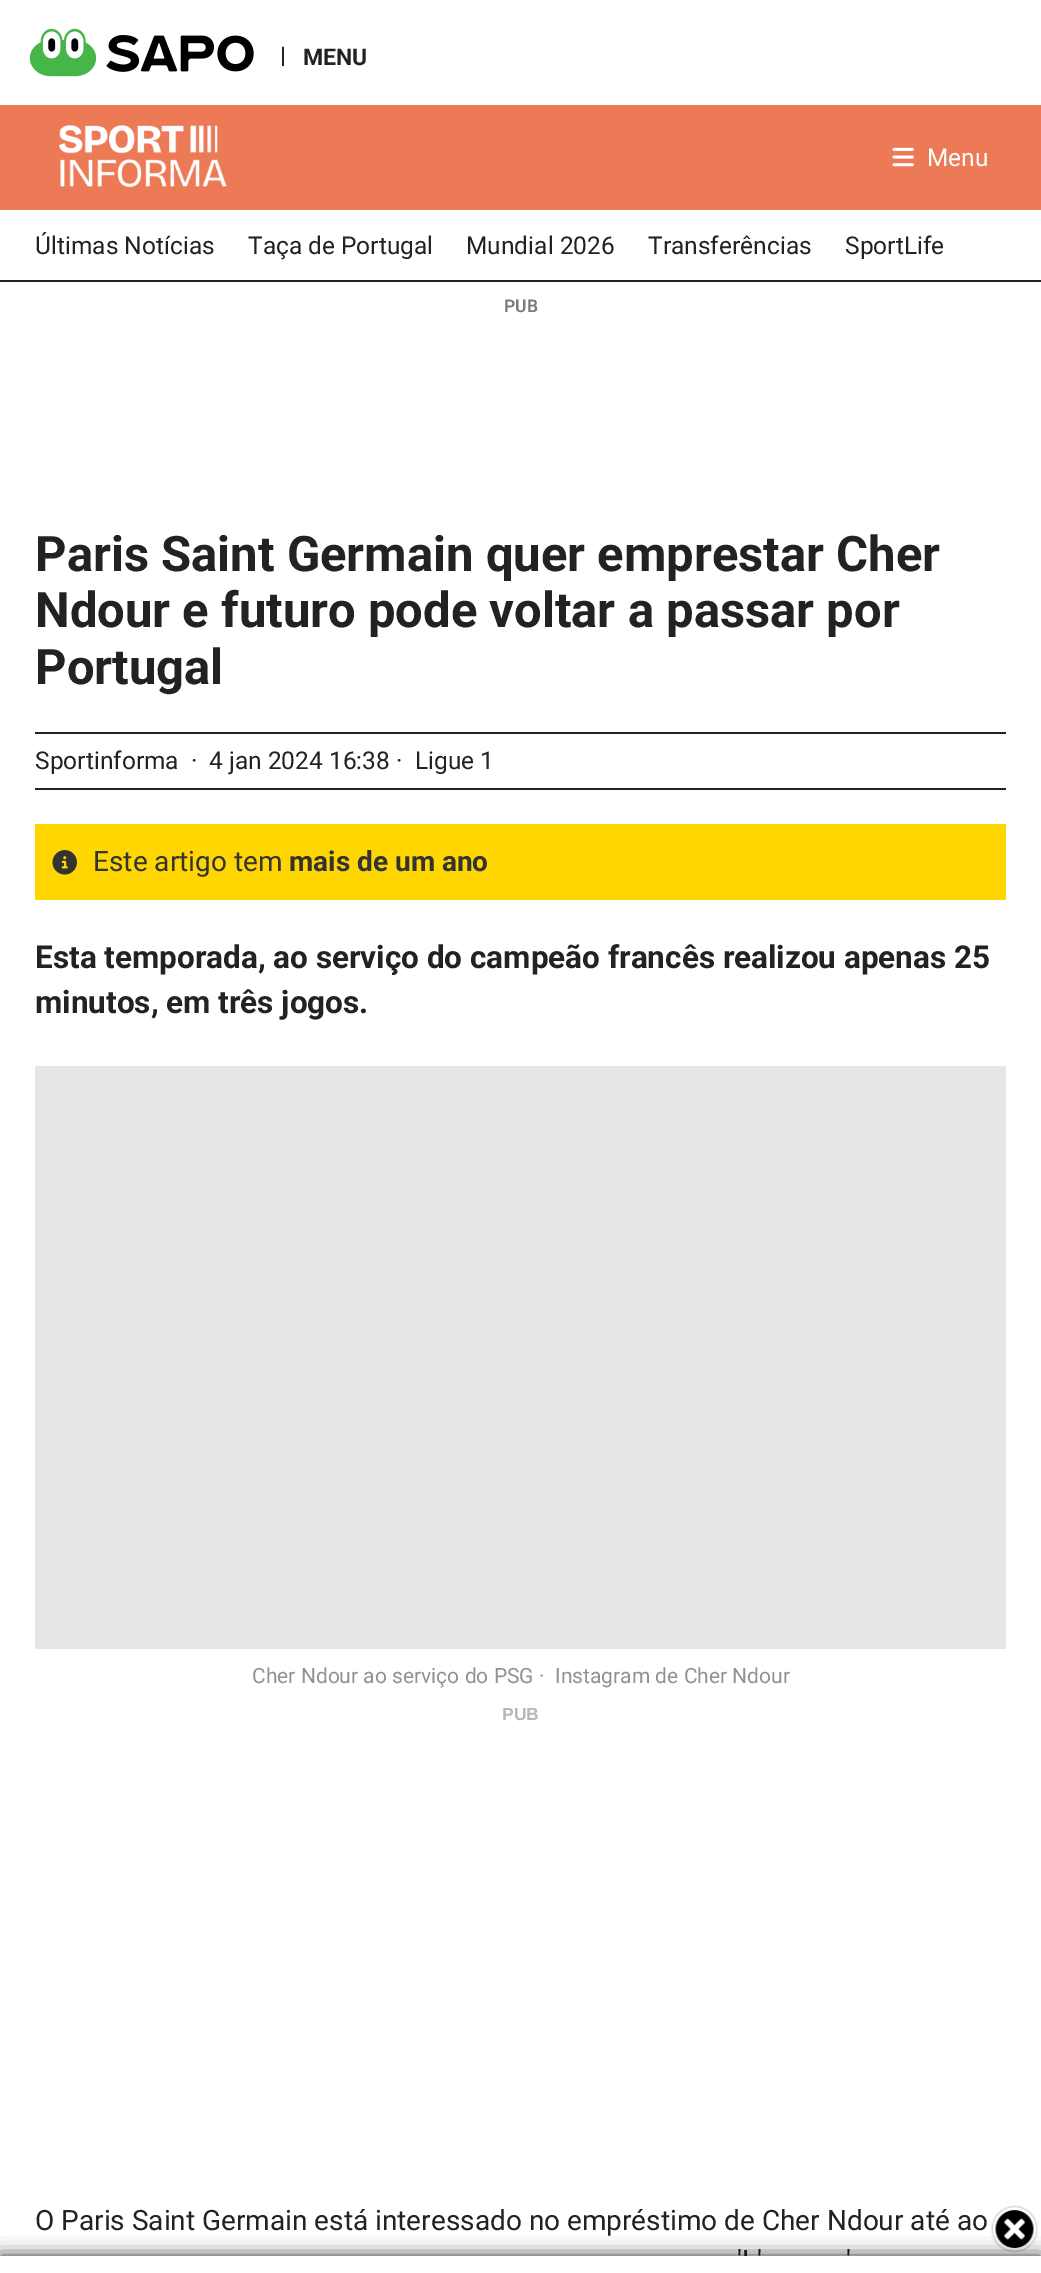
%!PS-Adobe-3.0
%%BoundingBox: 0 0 1041 2273
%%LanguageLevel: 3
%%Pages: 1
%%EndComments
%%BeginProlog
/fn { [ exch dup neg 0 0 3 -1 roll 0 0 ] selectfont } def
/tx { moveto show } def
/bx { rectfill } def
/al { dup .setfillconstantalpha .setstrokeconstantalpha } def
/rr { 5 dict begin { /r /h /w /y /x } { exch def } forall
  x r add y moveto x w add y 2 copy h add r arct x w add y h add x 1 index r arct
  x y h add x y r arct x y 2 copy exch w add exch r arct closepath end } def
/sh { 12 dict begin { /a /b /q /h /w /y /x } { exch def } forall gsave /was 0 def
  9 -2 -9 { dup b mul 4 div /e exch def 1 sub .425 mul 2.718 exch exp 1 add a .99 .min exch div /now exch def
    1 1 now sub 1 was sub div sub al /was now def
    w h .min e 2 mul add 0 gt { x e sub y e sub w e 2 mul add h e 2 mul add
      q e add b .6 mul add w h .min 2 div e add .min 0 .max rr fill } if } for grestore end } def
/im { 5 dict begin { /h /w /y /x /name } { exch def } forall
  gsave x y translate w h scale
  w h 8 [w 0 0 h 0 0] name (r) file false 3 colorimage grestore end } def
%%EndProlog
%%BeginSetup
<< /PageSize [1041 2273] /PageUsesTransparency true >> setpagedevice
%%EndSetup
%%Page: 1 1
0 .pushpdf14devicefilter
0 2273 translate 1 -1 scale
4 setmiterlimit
1 setgray
0 0 1041 2273 bx
(image0.raw) 29 28 225 49 im
/Roboto-Bold 23 fn
0.133 setgray
(|) 280 63 tx
(MENU) 303 65 tx
0.925 0.478 0.337 setrgbcolor
0 105 1041 105 bx
(image1.raw) 59 125 168 62 im
(image2.raw) 892 147 22 20 im
/Roboto-Regular 24.5 fn
1 setgray
(Menu) 927 166 tx
0.133 setgray
0 280 1041 2 bx
(Últimas Notícias) 35 254 tx
(Taça de Portugal) 248 254 tx
(Mundial 2026) 466 254 tx
(Transferências) 648 254 tx
(SportLife) 845 254 tx
/Roboto-SemiBold 17.5 fn
0.478 setgray
(PUB) 504 312 tx
/Roboto-Bold 49 fn
0.133 setgray
(Paris Saint Germain quer emprestar Cher) 35 571 tx
(Ndour e futuro pode voltar a passar por) 35 627 tx
(Portugal) 35 684 tx
35 732 971 2 bx
35 788 971 2 bx
/Roboto-Regular 24.5 fn
(Sportinforma) 35 769 tx
(·) 191 769 tx
(4 jan 2024 16:38 ·) 209 769 tx
(Ligue 1) 415 769 tx
1 0.839 0 setrgbcolor
35 824 971 76 bx
(image3.raw) 52 850 25 25 im
/Roboto-Regular 28 fn
0.2 setgray
(Este artigo tem) 93 871 tx
/Roboto-Bold 28 fn
(mais de um ano) 289 871 tx
/Roboto-Bold 31.5 fn
0.133 setgray
(Esta temporada, ao serviço do campeão francês realizou apenas 25) 35 968 tx
(minutos, em três jogos.) 35 1013 tx
0.902 setgray
35 1066 971 583 bx
/Roboto-Regular 21 fn
0.569 setgray
(Cher Ndour ao serviço do PSG ·) 252 1683 tx
(Instagram de Cher Ndour) 555 1683 tx
/LiberationSans-Bold 17.5 fn
0.714 setgray
(PUB) 502 1720 tx
/Roboto-Regular 28 fn
0.133 setgray
(O Paris Saint Germain está interessado no empréstimo de Cher Ndour até ao) 35 2230 tx
('L') 737 2270 tx
(') 846 2270 tx
(image4.raw) 991 2205 47 48 im
0 setgray
0 2256 1041 17 0 9 0.8 sh
1 setgray
0 2256 1041 17 bx
.poppdf14devicefilter showpage
%%EOF
